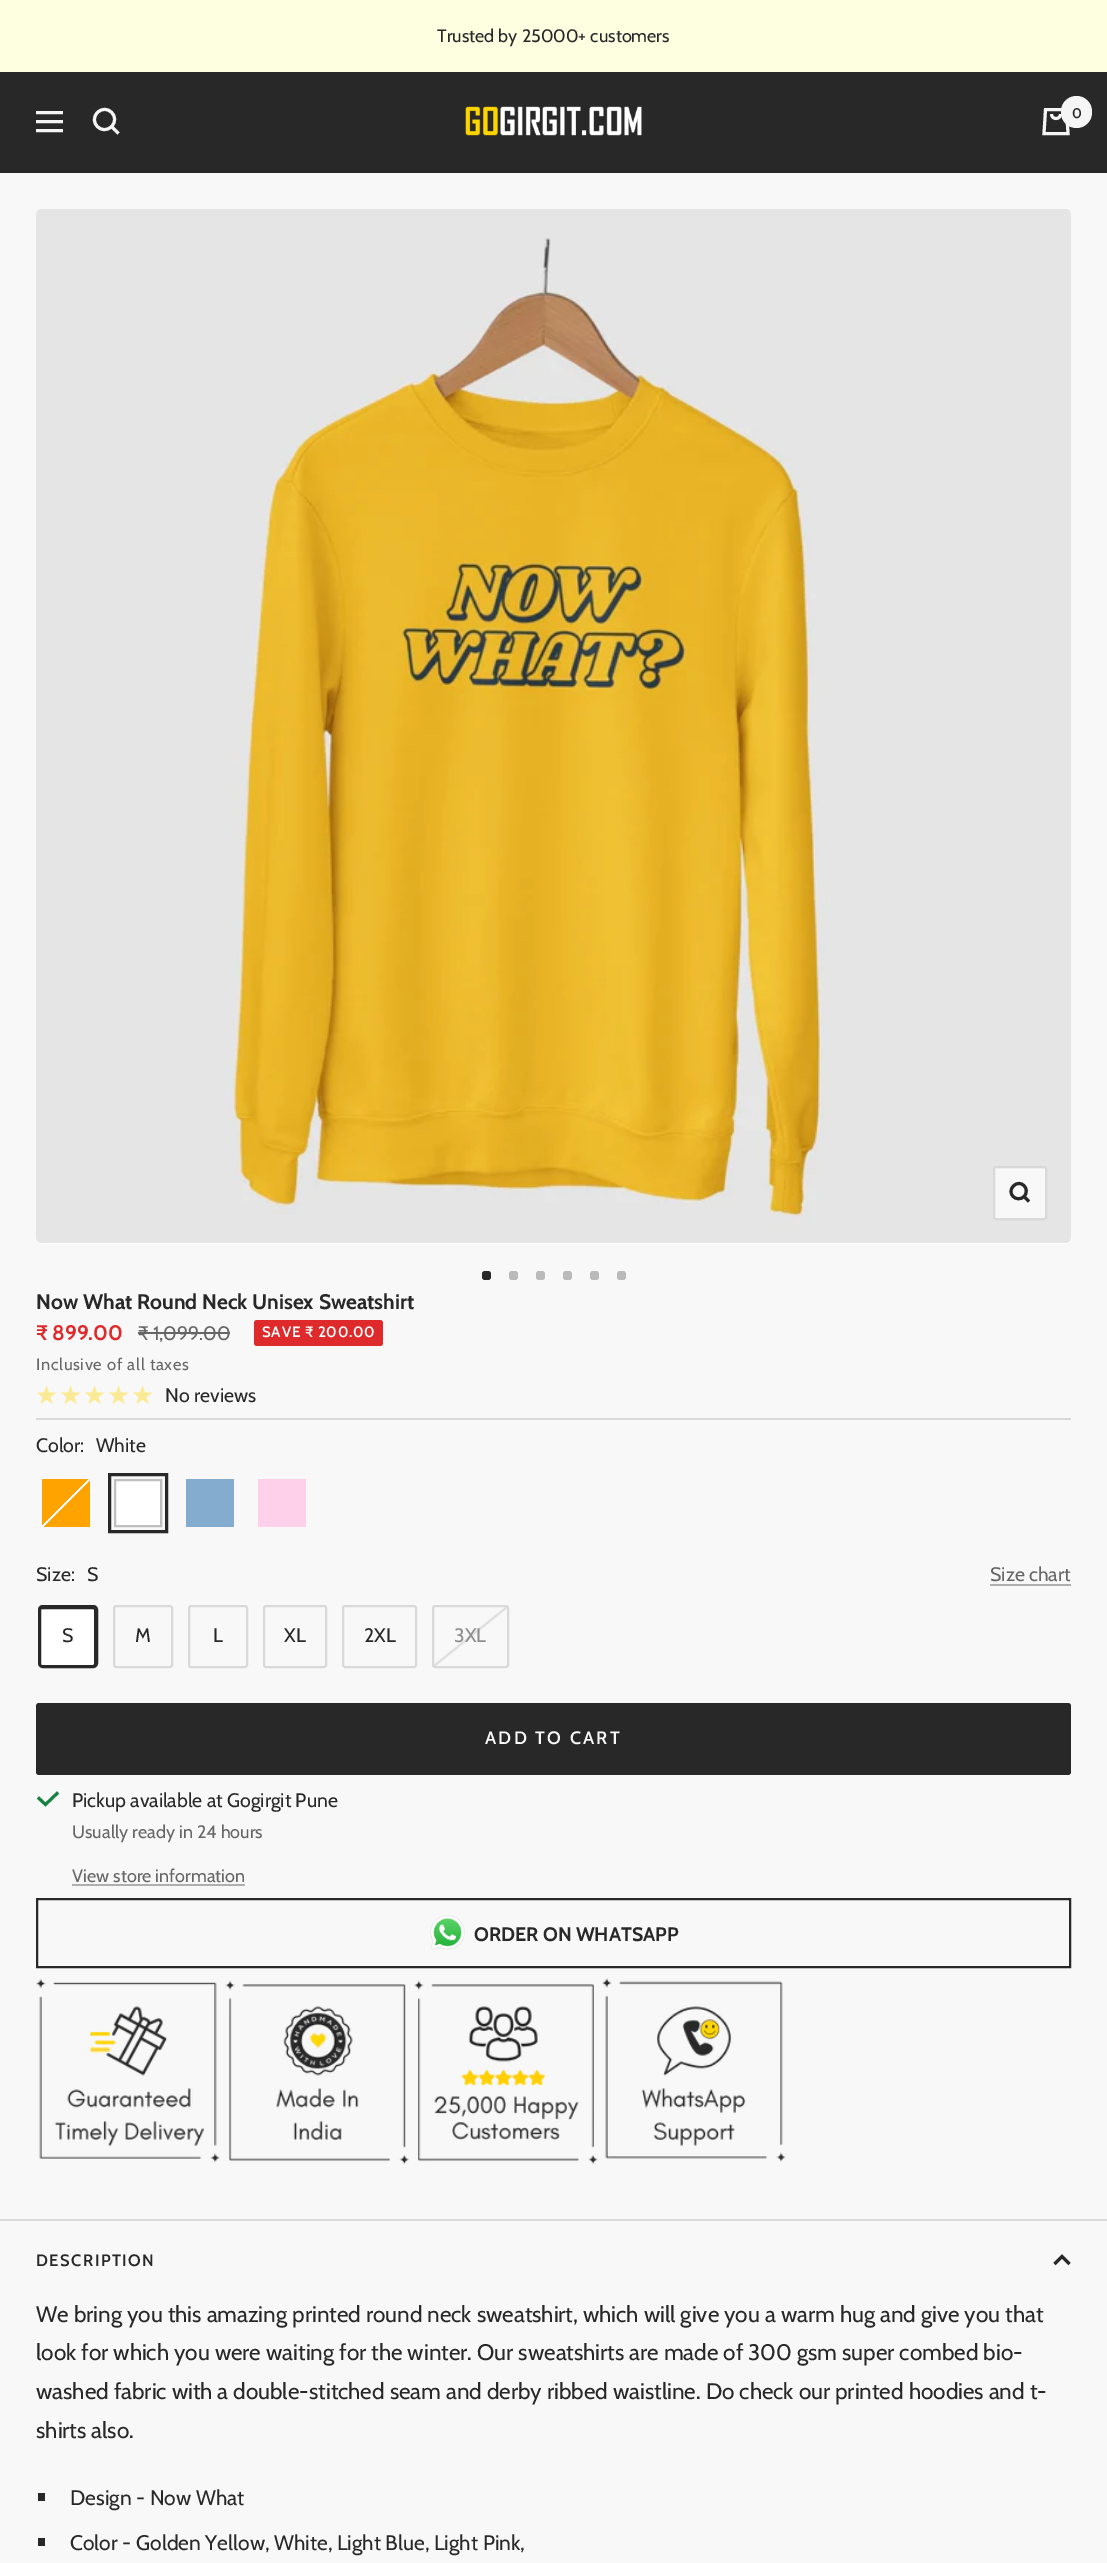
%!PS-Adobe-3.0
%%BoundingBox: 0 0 1107 2563
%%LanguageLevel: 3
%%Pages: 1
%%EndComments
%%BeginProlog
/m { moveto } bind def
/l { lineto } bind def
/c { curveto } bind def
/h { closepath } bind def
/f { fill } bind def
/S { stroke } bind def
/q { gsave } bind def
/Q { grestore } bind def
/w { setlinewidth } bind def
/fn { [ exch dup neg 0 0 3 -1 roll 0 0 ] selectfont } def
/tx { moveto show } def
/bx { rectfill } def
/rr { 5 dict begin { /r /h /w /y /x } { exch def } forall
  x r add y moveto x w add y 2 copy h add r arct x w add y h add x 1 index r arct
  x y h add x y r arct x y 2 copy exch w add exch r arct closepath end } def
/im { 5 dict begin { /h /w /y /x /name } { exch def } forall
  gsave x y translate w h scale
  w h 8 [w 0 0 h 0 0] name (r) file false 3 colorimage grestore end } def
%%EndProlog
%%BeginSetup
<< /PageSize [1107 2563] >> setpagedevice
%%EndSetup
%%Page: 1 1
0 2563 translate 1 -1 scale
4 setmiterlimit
0.973 setgray
0 0 1107 2563 bx
0.996 0.996 0.882 setrgbcolor
0 0 1107 72 bx
/Cabin-Regular 18 fn
0.157 setgray
(Trusted by 25000+ customers) 437 42 tx
0 72 1107 101 bx
0.961 setgray
3 w
36 112.5 m 63 112.5 l 36 130.5 m 63 130.5 l h 36 121.5 m 63 121.5 l h S
111.5 126.5 m 121 117 107 103 97.5 112.5 c 88 122 102 136 111.5 126.5 c h 111.5 126.5 m 118.5 133.5 l S
(image0.raw) 465 106 177 30 im
1045.5 109.5 m 1066.5 109.5 l 1068 133.5 l 1044 133.5 l h 1051.5 114 m 1051.5 120 1060.5 120 1060.5 114 c S
1061 96 31 32 15.5 rr f
/Cabin-SemiBold 14 fn
0.157 setgray
(0) 1072 118 tx
1 setgray
36 209 1035 1035 6 rr f
(image1.raw) 36 209 1035 1034 im
0.973 setgray
994 1167 52 52 2 rr q f Q
0.851 setgray
2 w
S
0.157 setgray
3 w
1024 1196.5 m 1031 1189 1020.5 1178.5 1013.5 1186 c 1006 1193 1016.5 1203.5 1024 1196.5 c h 1024 1196.5 m 1029 1201.5 l S
482 1271 9 9 3 rr f
0.729 setgray
509 1271 9 9 3 rr f
536 1271 9 9 3 rr f
563 1271 9 9 3 rr f
590 1271 9 9 3 rr f
617 1271 9 9 3 rr f
0.851 setgray
36 1418 1035 2 bx
/Cabin-Bold 21 fn
0.157 setgray
(Now What Round Neck Unisex Sweatshirt) 36 1309 tx
0.871 0.165 0.165 setrgbcolor
(₹ 899.00) 36 1340 tx
/Cabin-Regular 19.5 fn
0.4 setgray
(₹ 1,099.00) 138 1340 tx
138 1332 92 2 bx
0.871 0.165 0.165 setrgbcolor
254 1320 129 26 3 rr f
/Cabin-SemiBold 15 fn
1 setgray
262 1337 m 0.75 0 (SAVE ₹ 200.00) ashow
/Cabin-Regular 16.5 fn
0.4 setgray
36 1370 m 0.7 0 (Inclusive of all taxes) ashow
(image2.raw) 36 1385 21 19 im
(image2.raw) 60 1385 21 19 im
(image2.raw) 84 1385 21 19 im
(image2.raw) 108 1385 21 19 im
(image2.raw) 132 1385 21 19 im
/Cabin-Regular 19.5 fn
0.157 setgray
(No reviews) 165 1402 tx
(Color:) 36 1452 tx
(White) 96 1452 tx
q 42 1479 m 90 1479 l 90 1527 l 42 1527 l h clip newpath
<< /ShadingType 2 /ColorSpace /DeviceRGB /Coords [42 1479 90 1527] /Extend [true true] /Function << /FunctionType 3 /Domain [0 1] /Functions [<< /FunctionType 2 /Domain [0 1] /C0 [1 0.639 0] /C1 [1 0.639 0] /N 1 >> << /FunctionType 2 /Domain [0 1] /C0 [0.973 0.973 0.973] /C1 [0.973 0.973 0.973] /N 1 >> << /FunctionType 2 /Domain [0 1] /C0 [1 0.639 0] /C1 [1 0.639 0] /N 1 >>] /Bounds [0.48 0.52] /Encode [0 1 0 1 0 1] >> >> shfill Q
1 setgray
115 1480 m 161 1480 l 161 1526 l 115 1526 l h q f Q
0.749 setgray
2 w
S
0.157 setgray
3 w
109.5 1474.5 57 57 rectstroke
0.518 0.675 0.808 setrgbcolor
186 1479 48 48 bx
1 0.816 0.914 setrgbcolor
258 1479 48 48 bx
0.157 setgray
(Size:) 36 1581 tx
(S) 87 1581 tx
0.4 setgray
(Size chart) 990 1581 tx
0.686 setgray
990 1584 81 2 bx
1 setgray
39 1606 58 61 2 rr q f Q
0.851 setgray
2 w
S
0.157 setgray
39 1606 58 61 4 rr S
40 1608 55 58 2 rr S
(S) 62 1642 tx
0.851 setgray
114 1606 58 61 2 rr S
0.157 setgray
(M) 135 1642 tx
0.851 setgray
189 1606 58 61 2 rr S
0.157 setgray
(L) 213 1642 tx
0.851 setgray
264 1606 62 61 2 rr S
0.157 setgray
(XL) 284 1642 tx
0.851 setgray
343 1606 73 61 2 rr S
0.157 setgray
(2XL) 364 1642 tx
q 434 1607 m 507 1607 l 507 1666 l 434 1666 l h clip newpath
<< /ShadingType 2 /ColorSpace /DeviceRGB /Coords [441 1600 500 1673] /Extend [true true] /Function << /FunctionType 3 /Domain [0 1] /Functions [<< /FunctionType 2 /Domain [0 1] /C0 [0.973 0.973 0.973] /C1 [0.973 0.973 0.973] /N 1 >> << /FunctionType 2 /Domain [0 1] /C0 [0.973 0.973 0.973] /C1 [0.851 0.851 0.851] /N 1 >> << /FunctionType 2 /Domain [0 1] /C0 [0.851 0.851 0.851] /C1 [0.973 0.973 0.973] /N 1 >> << /FunctionType 2 /Domain [0 1] /C0 [0.973 0.973 0.973] /C1 [0.973 0.973 0.973] /N 1 >>] /Bounds [0.48 0.5 0.52] /Encode [0 1 0 1 0 1 0 1] >> >> shfill Q
0.851 setgray
433 1606 75 61 2 rr S
0.557 setgray
(3XL) 454 1642 tx
0.157 setgray
36 1703 1035 72 3 rr f
/Cabin-SemiBold 18 fn
0.973 setgray
485 1744 m 2.25 0 (ADD TO CART) ashow
0.086 0.514 0.259 setrgbcolor
3 w
38 1797.5 m 45.5 1804.5 l 58 1792.5 l S
/Cabin-Regular 19.5 fn
0.157 setgray
(Pickup available at Gogirgit Pune) 72 1807 tx
/Cabin-Regular 18 fn
0.4 setgray
(Usually ready in 24 hours) 72 1838 tx
(View store information) 72 1882 tx
0.686 setgray
72 1884 173 2 bx
0.157 setgray
2 w
37 1899 1033 68 rectstroke
(image3.raw) 430 1915 35 35 im
/Cabin-Bold 19.5 fn
(ORDER ON WHATSAPP) 474 1941 tx
(image4.raw) 36 1978 750 187 im
0.851 setgray
0 2219 1107 2 bx
/Cabin-SemiBold 16.5 fn
0.157 setgray
36 2266 m 1.5 0 (DESCRIPTION) ashow
3 w
1069.5 2264 m 1062 2256.5 l 1054.5 2264 l S
/Cabin-Regular 22.5 fn
(We bring you this amazing printed round neck sweatshirt, which will give you a warm hug and give you that) 36 2322 tx
(look for which you were waiting for the winter. Our sweatshirts are made of 300 gsm super combed bio-) 36 2360 tx
(washed fabric with a double-stitched seam and derby ribbed waistline. Do check our printed hoodies and t-) 36 2399 tx
(shirts also.) 36 2438 tx
38 2493 7 8 bx
/Cabin-Regular 21 fn
(Design - Now What) 70 2505 tx
38 2538 7 8 bx
(Color - Golden Yellow, White, Light Blue, Light Pink,) 70 2550 tx
showpage
%%EOF
